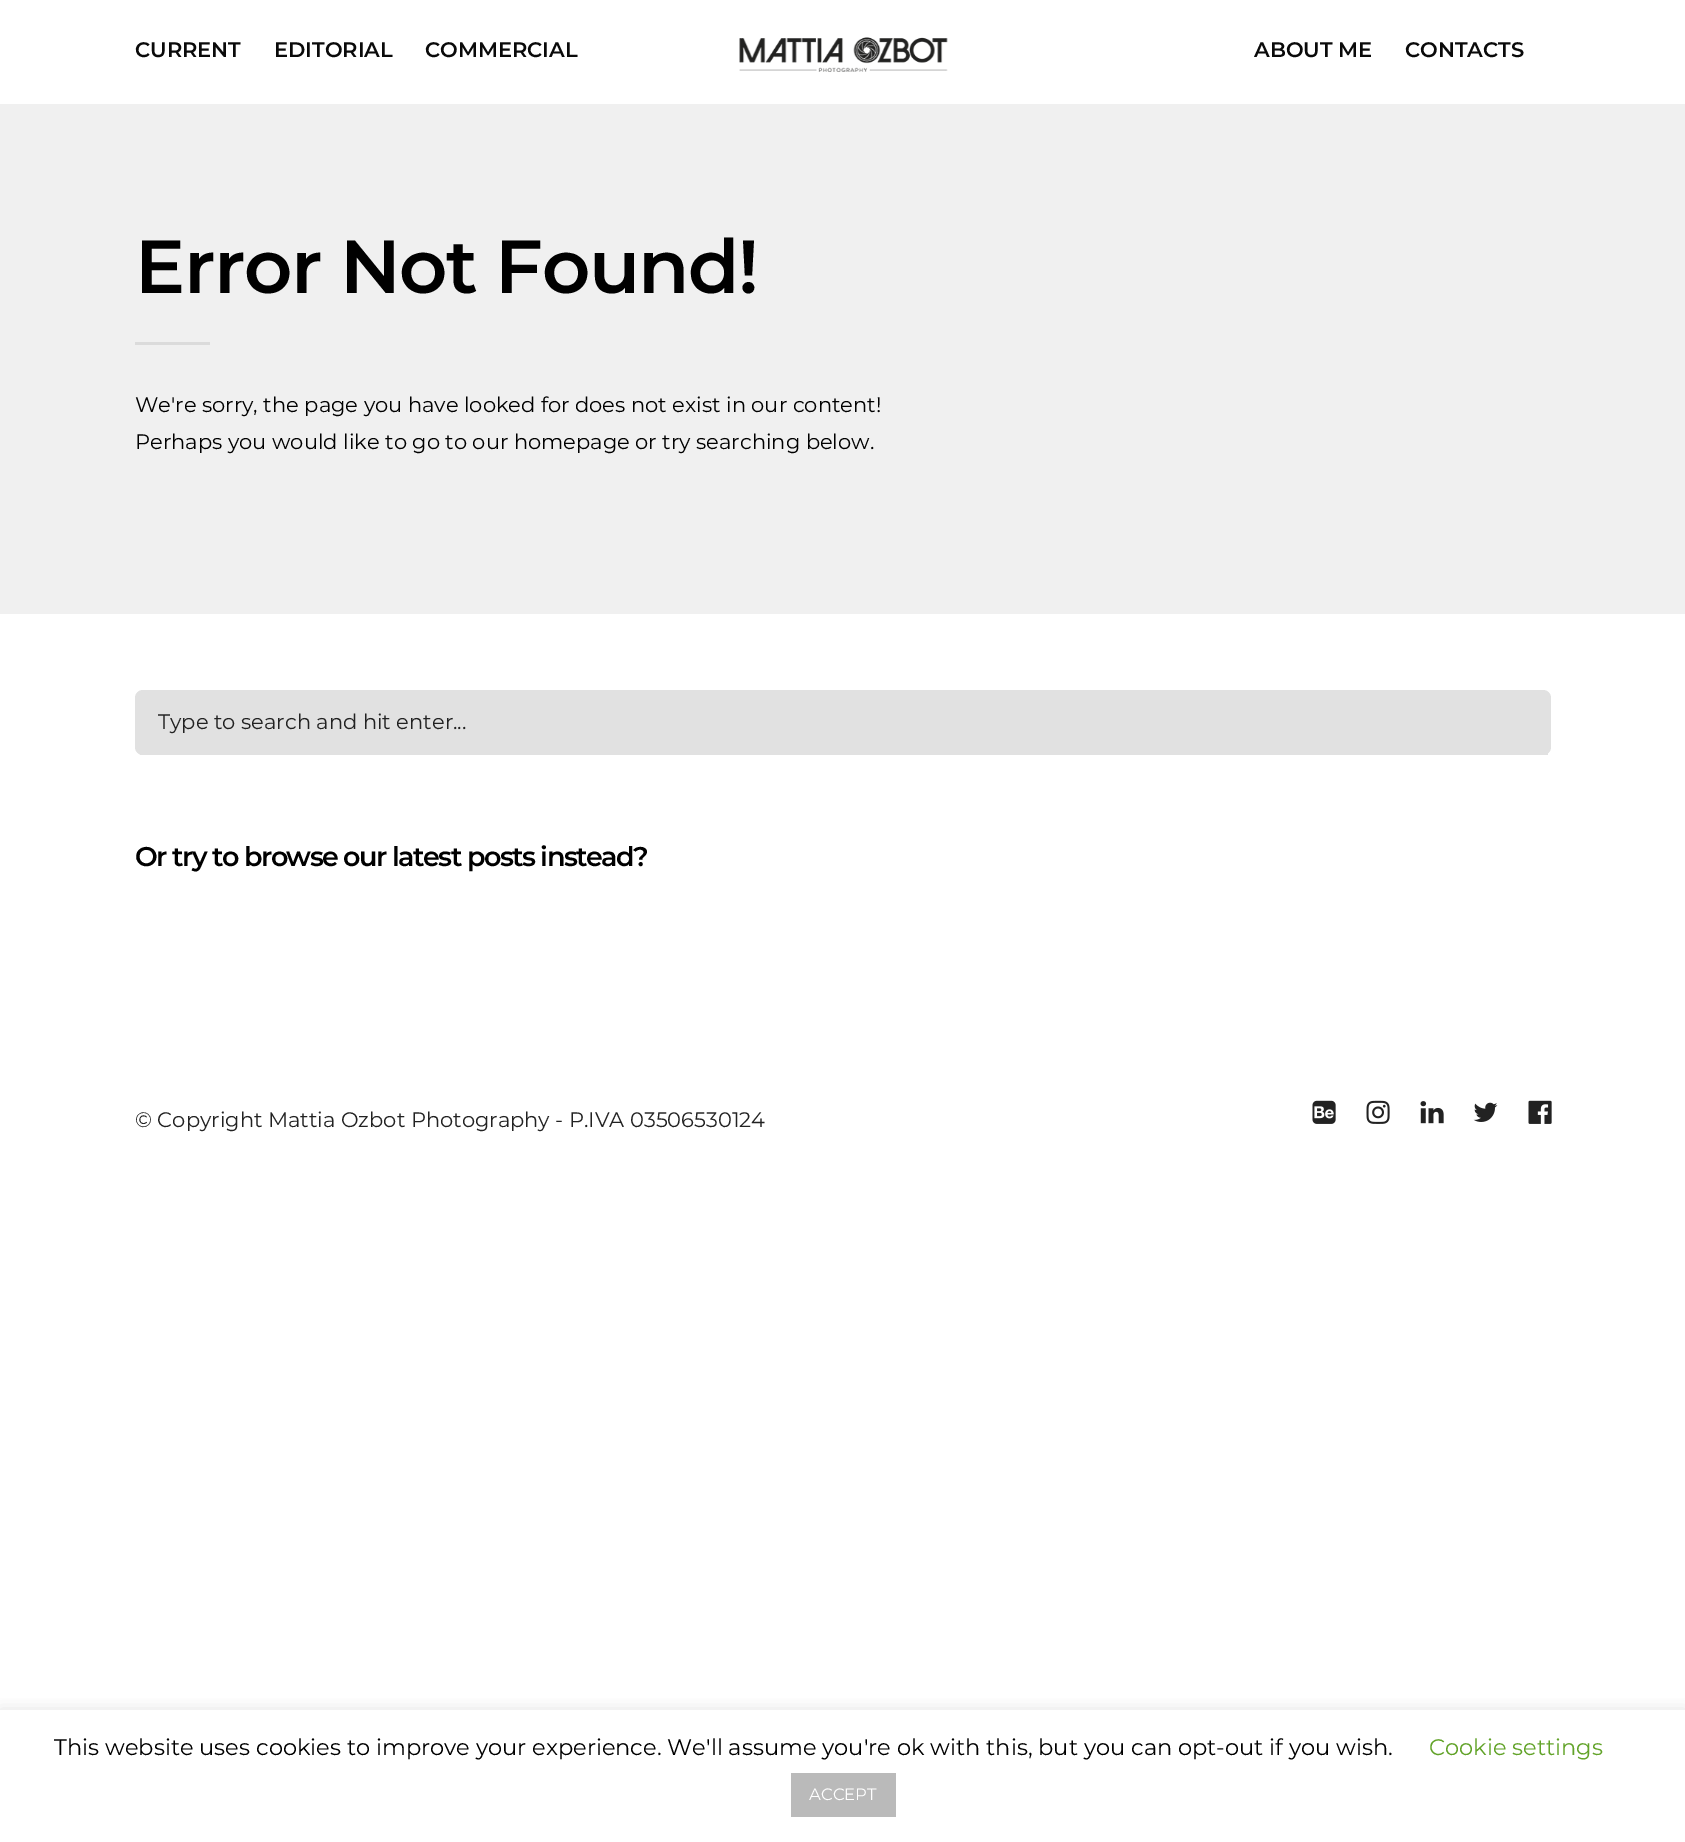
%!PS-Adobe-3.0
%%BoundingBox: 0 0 1685 1842
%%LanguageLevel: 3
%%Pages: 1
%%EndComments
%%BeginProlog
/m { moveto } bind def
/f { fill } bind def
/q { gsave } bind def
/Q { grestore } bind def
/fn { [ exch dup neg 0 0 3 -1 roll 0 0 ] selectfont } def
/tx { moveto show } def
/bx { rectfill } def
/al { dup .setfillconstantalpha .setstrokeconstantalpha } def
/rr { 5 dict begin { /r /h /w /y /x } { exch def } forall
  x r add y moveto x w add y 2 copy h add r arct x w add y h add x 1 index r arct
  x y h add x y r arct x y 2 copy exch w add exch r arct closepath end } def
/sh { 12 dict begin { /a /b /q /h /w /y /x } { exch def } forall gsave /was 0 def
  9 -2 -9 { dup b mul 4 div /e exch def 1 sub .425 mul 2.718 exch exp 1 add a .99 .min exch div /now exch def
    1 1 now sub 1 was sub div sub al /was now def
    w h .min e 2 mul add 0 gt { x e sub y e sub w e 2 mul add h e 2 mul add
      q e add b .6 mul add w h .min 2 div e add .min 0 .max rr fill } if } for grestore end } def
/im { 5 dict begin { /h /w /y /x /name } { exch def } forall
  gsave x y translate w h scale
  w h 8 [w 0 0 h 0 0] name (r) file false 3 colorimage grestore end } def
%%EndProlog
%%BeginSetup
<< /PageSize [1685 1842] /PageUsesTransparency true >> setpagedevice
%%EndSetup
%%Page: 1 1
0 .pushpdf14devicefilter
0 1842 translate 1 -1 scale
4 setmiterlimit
1 setgray
0 0 1685 1842 bx
(image0.raw) 739 37 209 35 im
/Montserrat-SemiBold 21 fn
0.039 setgray
(CURRENT) 135 57 tx
(EDITORIAL) 274 57 tx
(COMMERCIAL) 425 57 tx
(ABOUT ME) 1254 57 tx
(CONTACTS) 1405 57 tx
0.941 setgray
0 104 1685 510 bx
/Montserrat-SemiBold 75 fn
0 setgray
135 293 m -1.5 0 (Error Not Found!) ashow
0.859 setgray
135 342 75 3 bx
/Montserrat-Regular 21 fn
0 setgray
(We're sorry, the page you have looked for does not exist in our content!) 135 412 tx
(Perhaps you would like to go to our homepage or try searching below.) 135 449 tx
0.882 setgray
135 690 1416 65 8 rr f
140 753 1408 2 bx
0.133 setgray
(Type to search and hit enter...) 158 729 tx
/Montserrat-SemiBold 27 fn
0 setgray
135 866 m -1.5 0 (Or try to browse our latest posts instead?) ashow
/Montserrat-Regular 21 fn
0.133 setgray
(© Copyright Mattia Ozbot Photography - P.IVA 03506530124) 135 1127 tx
(image1.raw) 1312 1100 24 24 im
(image2.raw) 1366 1100 24 24 im
(image3.raw) 1420 1101 24 23 im
(image4.raw) 1473 1102 25 20 im
(image5.raw) 1528 1100 24 24 im
q
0 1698 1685 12 rectclip
0.675 0.671 0.671 setrgbcolor
0 1709 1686 132 0 7.5 0.3 sh
Q
/Montserrat-Regular 22.5 fn
0 setgray
(This website uses cookies to improve your experience. We'll assume you're ok with this, but you can opt-out if you wish.) 54 1755 tx
0.384 0.639 0.161 setrgbcolor
(Cookie settings) 1429 1755 tx
0.729 setgray
791 1773 105 44 bx
/Montserrat-Regular 16.5 fn
1 setgray
(ACCEPT) 809 1800 tx
.poppdf14devicefilter showpage
%%EOF
